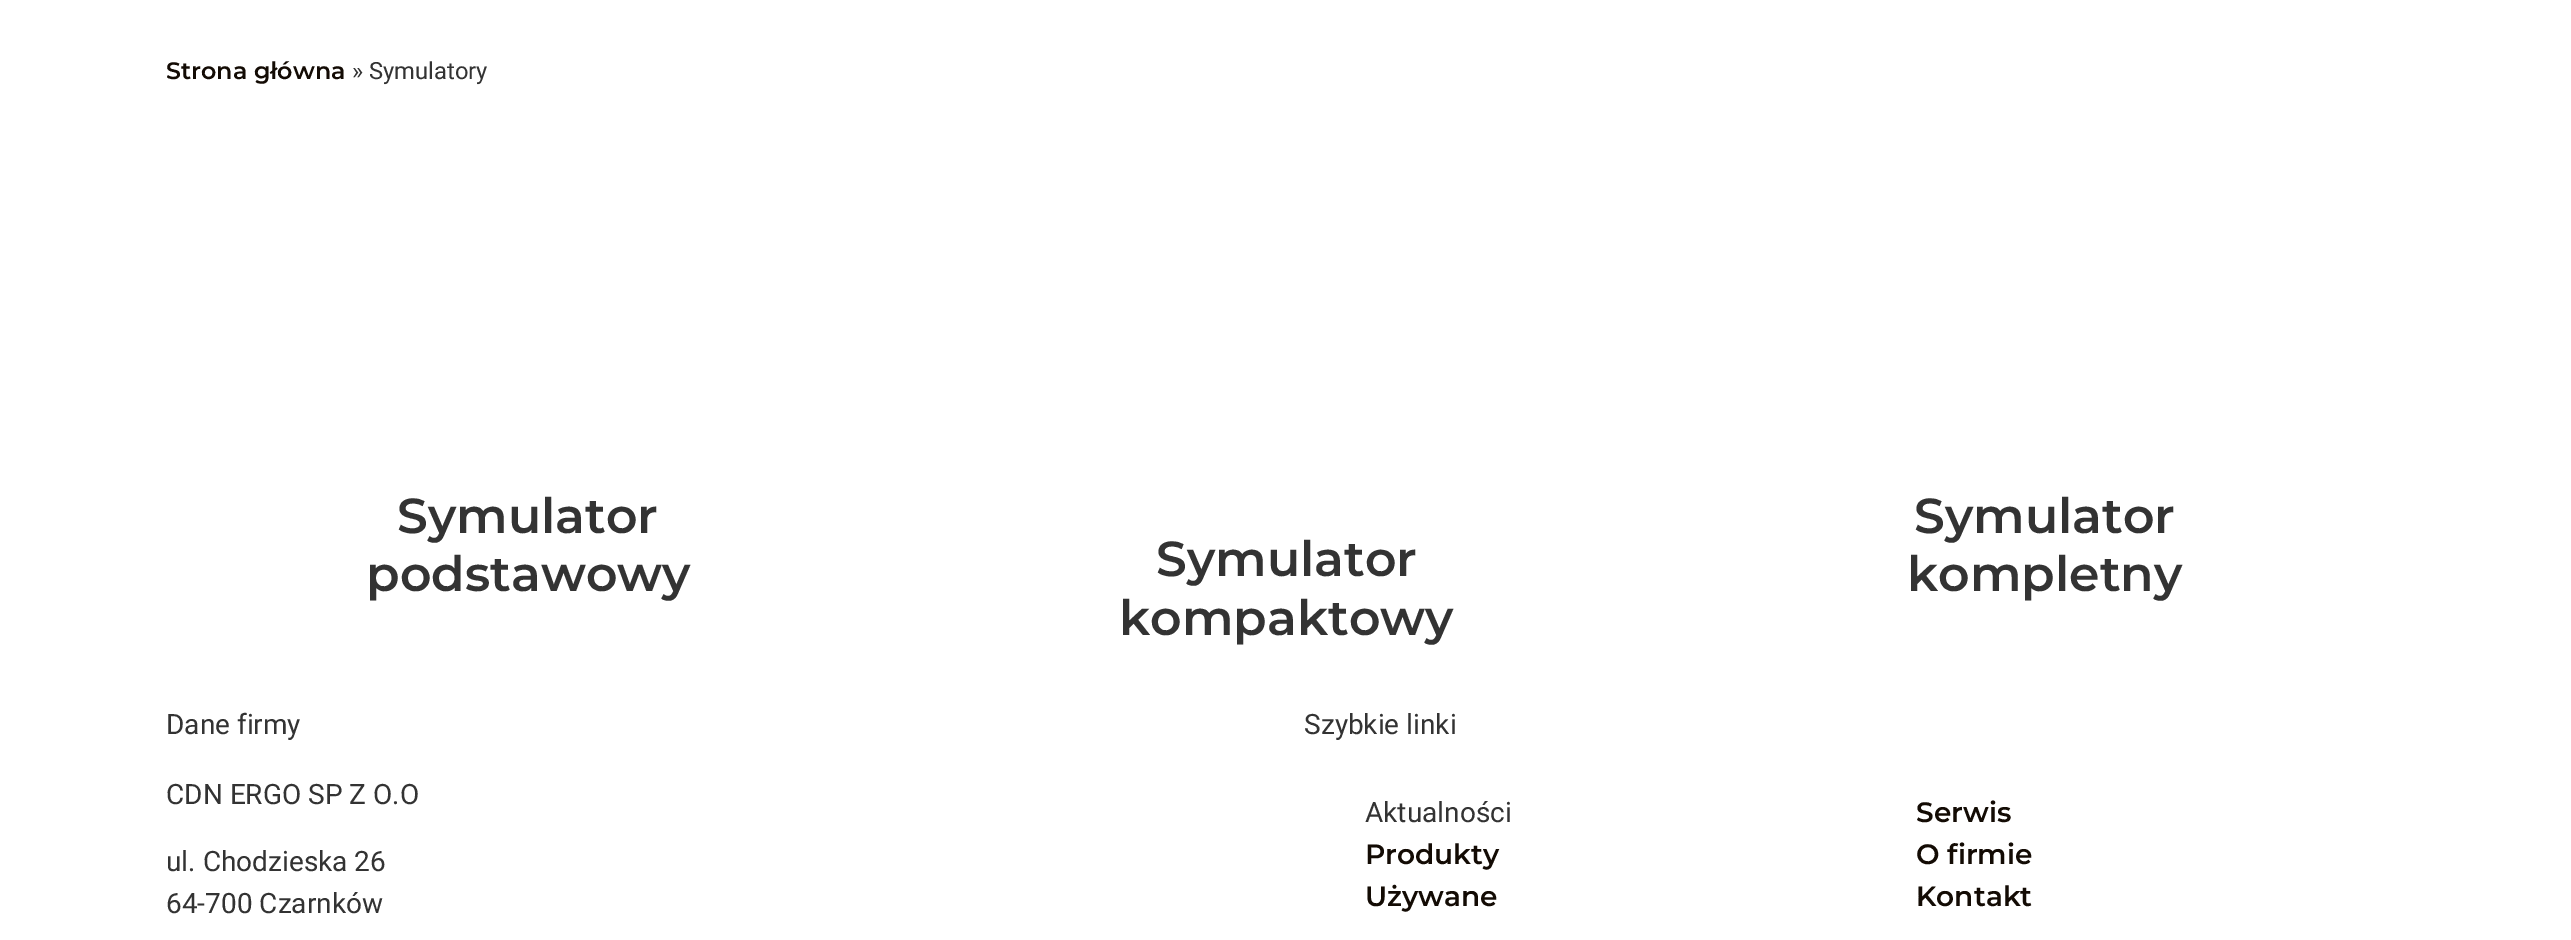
%!PS-Adobe-3.0
%%BoundingBox: 0 0 2571 940
%%LanguageLevel: 3
%%Pages: 1
%%EndComments
%%BeginProlog
/fn { [ exch dup neg 0 0 3 -1 roll 0 0 ] selectfont } def
/tx { moveto show } def
/bx { rectfill } def
%%EndProlog
%%BeginSetup
<< /PageSize [2571 940] >> setpagedevice
%%EndSetup
%%Page: 1 1
0 940 translate 1 -1 scale
4 setmiterlimit
1 setgray
0 0 2571 940 bx
/Montserrat-SemiBold 23.75 fn
0.075 0.043 0.016 setrgbcolor
(Strona główna) 166 79 tx
/Roboto-Regular 23.75 fn
0.2 setgray
(» Symulatory) 352 79 tx
/Montserrat-SemiBold 49 fn
(Symulator) 397 533 tx
(podstawowy) 366 591 tx
(Symulator) 1156 576 tx
(kompaktowy) 1119 635 tx
(Symulator) 1914 533 tx
(kompletny) 1907 591 tx
/Roboto-Regular 28 fn
(Dane firmy) 166 734 tx
(CDN ERGO SP Z O.O) 166 804 tx
(ul. Chodzieska 26) 166 871 tx
(64-700 Czarnków) 166 913 tx
(Szybkie linki) 1304 734 tx
(Aktualności) 1365 822 tx
/Montserrat-SemiBold 28 fn
0.075 0.043 0.016 setrgbcolor
(Produkty) 1365 864 tx
(Używane) 1365 906 tx
(Serwis) 1916 822 tx
(O firmie) 1916 864 tx
(Kontakt) 1916 906 tx
showpage
%%EOF
